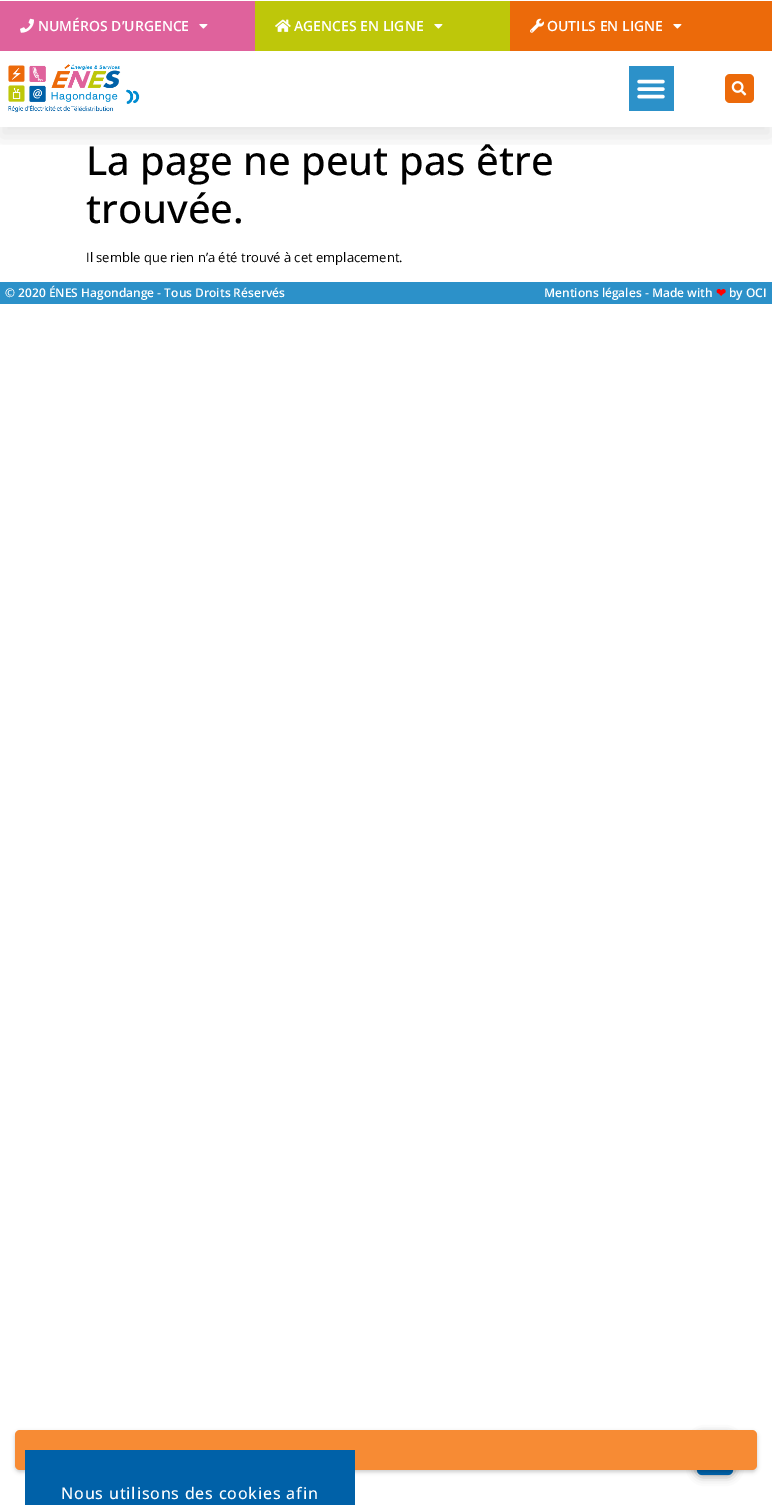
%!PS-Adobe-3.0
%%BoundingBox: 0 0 772 1505
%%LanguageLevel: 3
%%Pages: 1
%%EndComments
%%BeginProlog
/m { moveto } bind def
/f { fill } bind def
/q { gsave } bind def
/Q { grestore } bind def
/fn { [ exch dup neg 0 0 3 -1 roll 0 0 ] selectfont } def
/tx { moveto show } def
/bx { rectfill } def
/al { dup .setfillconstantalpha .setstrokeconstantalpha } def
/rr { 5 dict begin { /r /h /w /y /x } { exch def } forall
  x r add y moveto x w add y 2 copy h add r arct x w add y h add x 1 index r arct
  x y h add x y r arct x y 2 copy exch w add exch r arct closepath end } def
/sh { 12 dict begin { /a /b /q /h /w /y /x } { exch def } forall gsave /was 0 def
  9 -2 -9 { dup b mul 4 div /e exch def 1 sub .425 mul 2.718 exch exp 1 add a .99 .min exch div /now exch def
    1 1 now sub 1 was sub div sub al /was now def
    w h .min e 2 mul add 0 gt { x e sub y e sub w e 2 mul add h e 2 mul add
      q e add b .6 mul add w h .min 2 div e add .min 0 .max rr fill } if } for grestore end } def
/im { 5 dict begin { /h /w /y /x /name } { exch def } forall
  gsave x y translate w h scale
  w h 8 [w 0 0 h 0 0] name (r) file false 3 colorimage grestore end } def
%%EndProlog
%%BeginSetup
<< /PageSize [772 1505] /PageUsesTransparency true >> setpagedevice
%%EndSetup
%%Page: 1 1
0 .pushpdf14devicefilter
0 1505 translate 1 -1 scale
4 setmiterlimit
1 setgray
0 0 772 1505 bx
q
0 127 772 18 rectclip
0 setgray
0 11 772 126 0 10 0.1 sh
Q
0.875 0.384 0.612 setrgbcolor
0 1 255 50 bx
(image0.raw) 20 18 14 15 im
/OpenSans-SemiBold 14 fn
1 setgray
(NUMÉROS D’URGENCE) 38 31 tx
(image1.raw) 199 24 9 5 im
0.745 0.78 0.039 setrgbcolor
255 1 255 50 bx
(image2.raw) 275 19 16 13 im
1 setgray
(AGENCES EN LIGNE) 294 31 tx
(image3.raw) 434 24 9 5 im
0.925 0.416 0.039 setrgbcolor
510 1 262 50 bx
(image4.raw) 530 18 14 15 im
1 setgray
(OUTILS EN LIGNE) 547 31 tx
(image5.raw) 673 24 9 5 im
(image6.raw) 8 64 132 49 im
0.173 0.569 0.788 setrgbcolor
629 66 45 45 bx
(image7.raw) 637 79 28 20 im
0.925 0.416 0.039 setrgbcolor
725 74 29 29 5 rr f
(image8.raw) 731 81 16 15 im
/OpenSans-Medium 40 fn
0 setgray
(La page ne peut pas être) 86 175 tx
(trouvée.) 86 223 tx
/OpenSans-Regular 13 fn
(Il semble que rien n’a été trouvé à cet emplacement.) 86 262 tx
0.173 0.569 0.788 setrgbcolor
0 282 772 22 bx
/OpenSans-SemiBold 12 fn
1 setgray
(© 2020 ÉNES Hagondange - Tous Droits Réservés) 5 297 tx
(Mentions légales - Made with) 544 297 tx
/DejaVuSans-Bold 12 fn
1 0 0 setrgbcolor
(❤) 716 297 tx
/OpenSans-SemiBold 12 fn
1 setgray
(by OCI) 729 297 tx
0 setgray
697 1436 36 39 5 5 0.5 sh
0 0.38 0.659 setrgbcolor
697 1436 36 39 5 rr f
0 setgray
15 1432 742 40 5 2 0.2 sh
0.969 0.545 0.204 setrgbcolor
15 1430 742 40 5 rr f
0 0.38 0.659 setrgbcolor
25 1450 330 55 bx
/OpenSans-Medium 16 fn
1 setgray
61 1499 m 0.8 0 (Nous utilisons des cookies afin) ashow
.poppdf14devicefilter showpage
%%EOF
